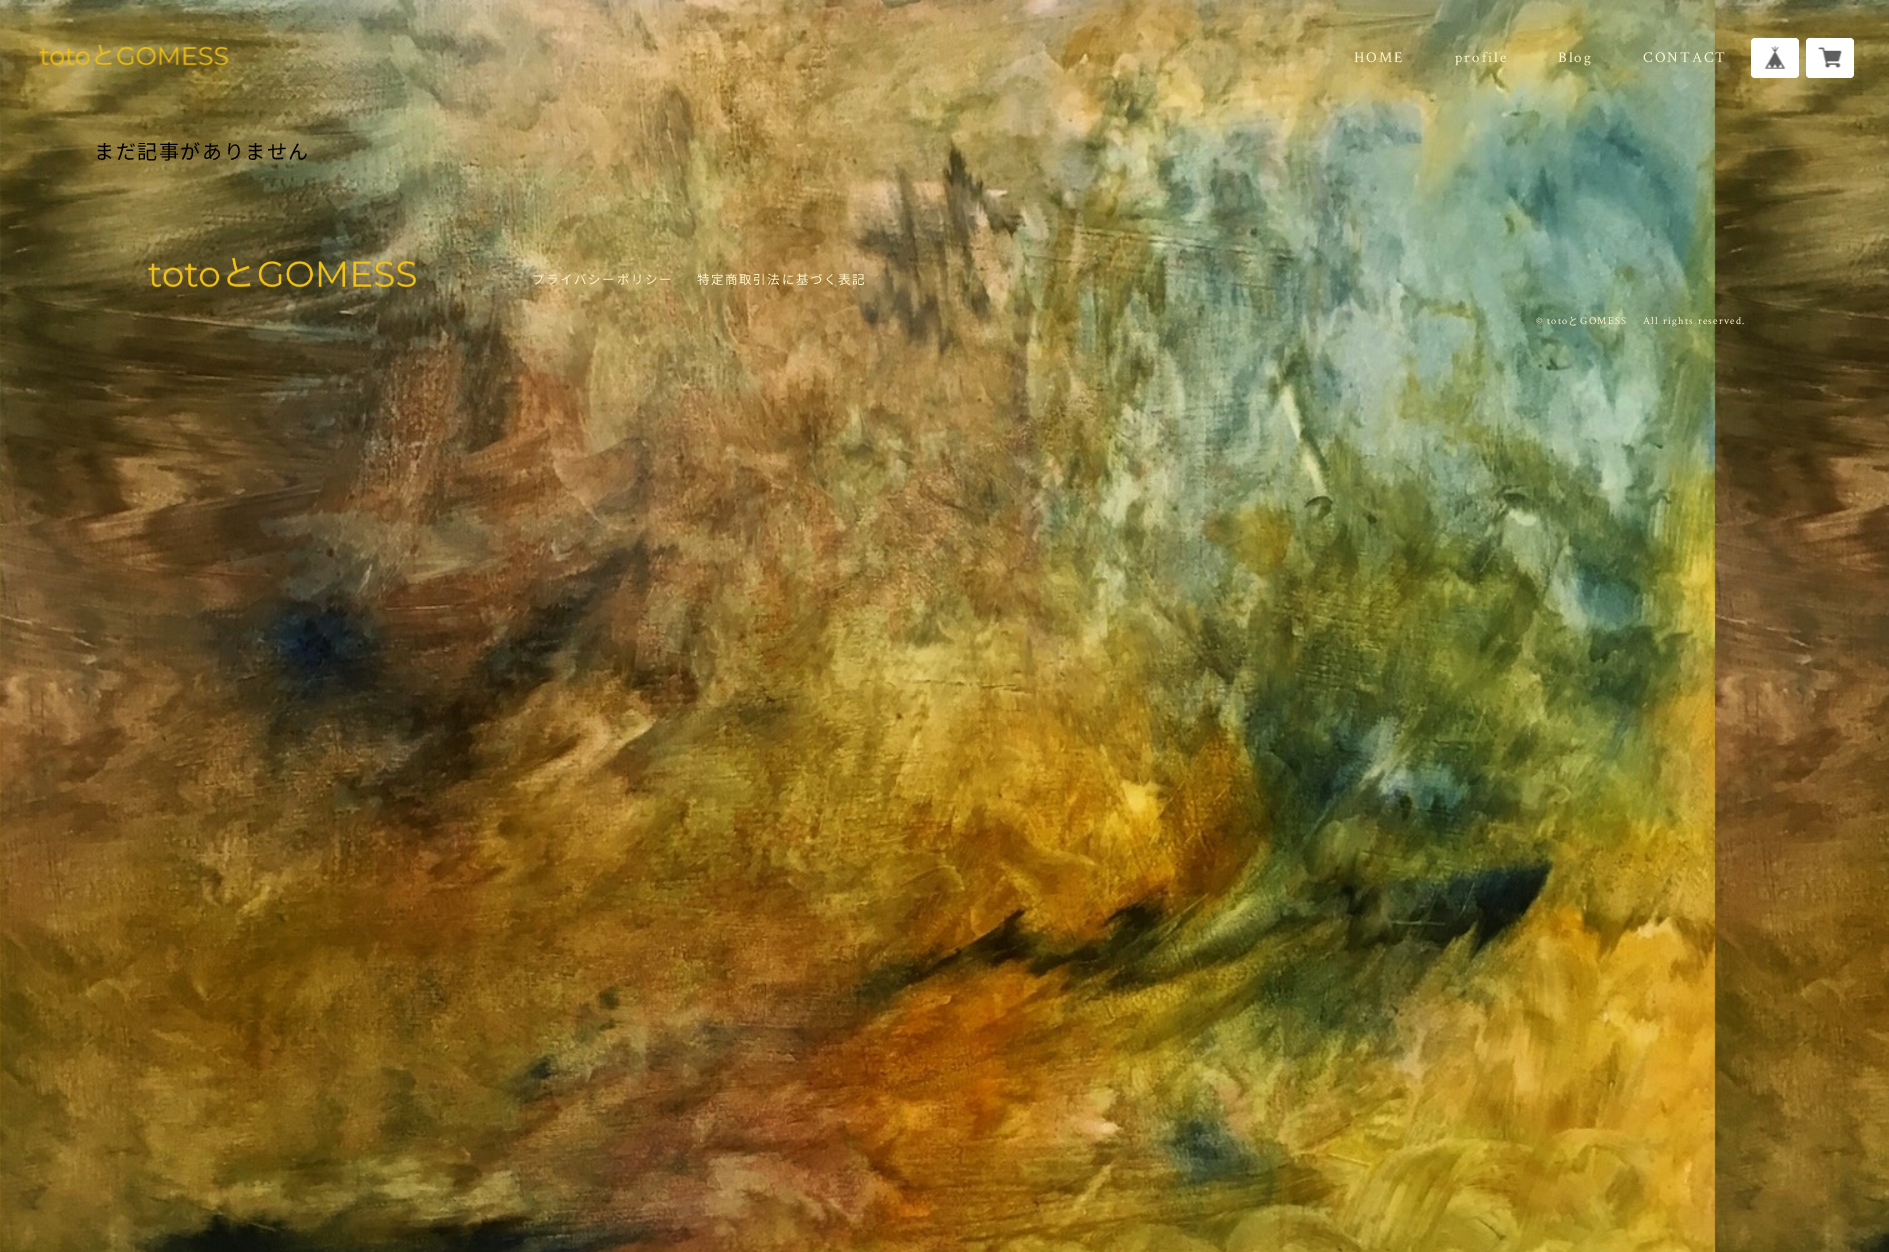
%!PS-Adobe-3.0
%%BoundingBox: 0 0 1889 1252
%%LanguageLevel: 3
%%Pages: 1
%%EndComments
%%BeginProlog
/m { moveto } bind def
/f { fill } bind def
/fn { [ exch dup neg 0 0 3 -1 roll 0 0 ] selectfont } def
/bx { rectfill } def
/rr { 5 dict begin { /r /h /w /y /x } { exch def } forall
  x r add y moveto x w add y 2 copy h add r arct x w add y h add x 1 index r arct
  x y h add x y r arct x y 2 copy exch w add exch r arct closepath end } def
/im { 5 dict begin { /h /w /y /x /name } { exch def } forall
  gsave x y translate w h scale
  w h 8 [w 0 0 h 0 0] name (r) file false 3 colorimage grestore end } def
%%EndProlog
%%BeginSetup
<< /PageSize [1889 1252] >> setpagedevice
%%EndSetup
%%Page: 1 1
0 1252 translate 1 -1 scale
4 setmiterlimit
1 setgray
0 0 1889 1252 bx
(image0.raw) 0 0 1889 1252 im
(image1.raw) 39 44 190 22 im
/CrimsonText-Regular 15 fn
1 0.969 0.8 setrgbcolor
1354 62 m 2 0 (HOME) ashow
1455 62 m 2 0 (profile) ashow
1558 62 m 2 0 (Blog) ashow
1643 62 m 2 0 (CONTACT) ashow
1 setgray
1751 38 48 40 4 rr f
(image2.raw) 1764 46 22 23 im
1806 38 48 40 4 rr f
(image3.raw) 1818 47 24 21 im
/NotoSansJP-Regular 20 fn
0 setgray
94 159 m 1.6 0 (まだ記事がありません) ashow
(image4.raw) 148 257 268 31 im
/NotoSansJP-Regular 12.5 fn
1 0.969 0.8 setrgbcolor
532 284 m 1.6 0 (プライバシーポリシー) ashow
697 284 m 1.6 0 (特定商取引法に基づく表記) ashow
/CrimsonText-Regular 10.5 fn
1536 324 m 1.25 0 (© toto) ashow
/WenQuanYiZenHei-Medium 10.5 fn
1568 324 m 1.25 0 (と) ashow
/CrimsonText-Regular 10.5 fn
1580 324 m 1.25 0 (GOMESS) ashow
1643 324 m 1.25 0 (All rights reserved.) ashow
showpage
%%EOF
